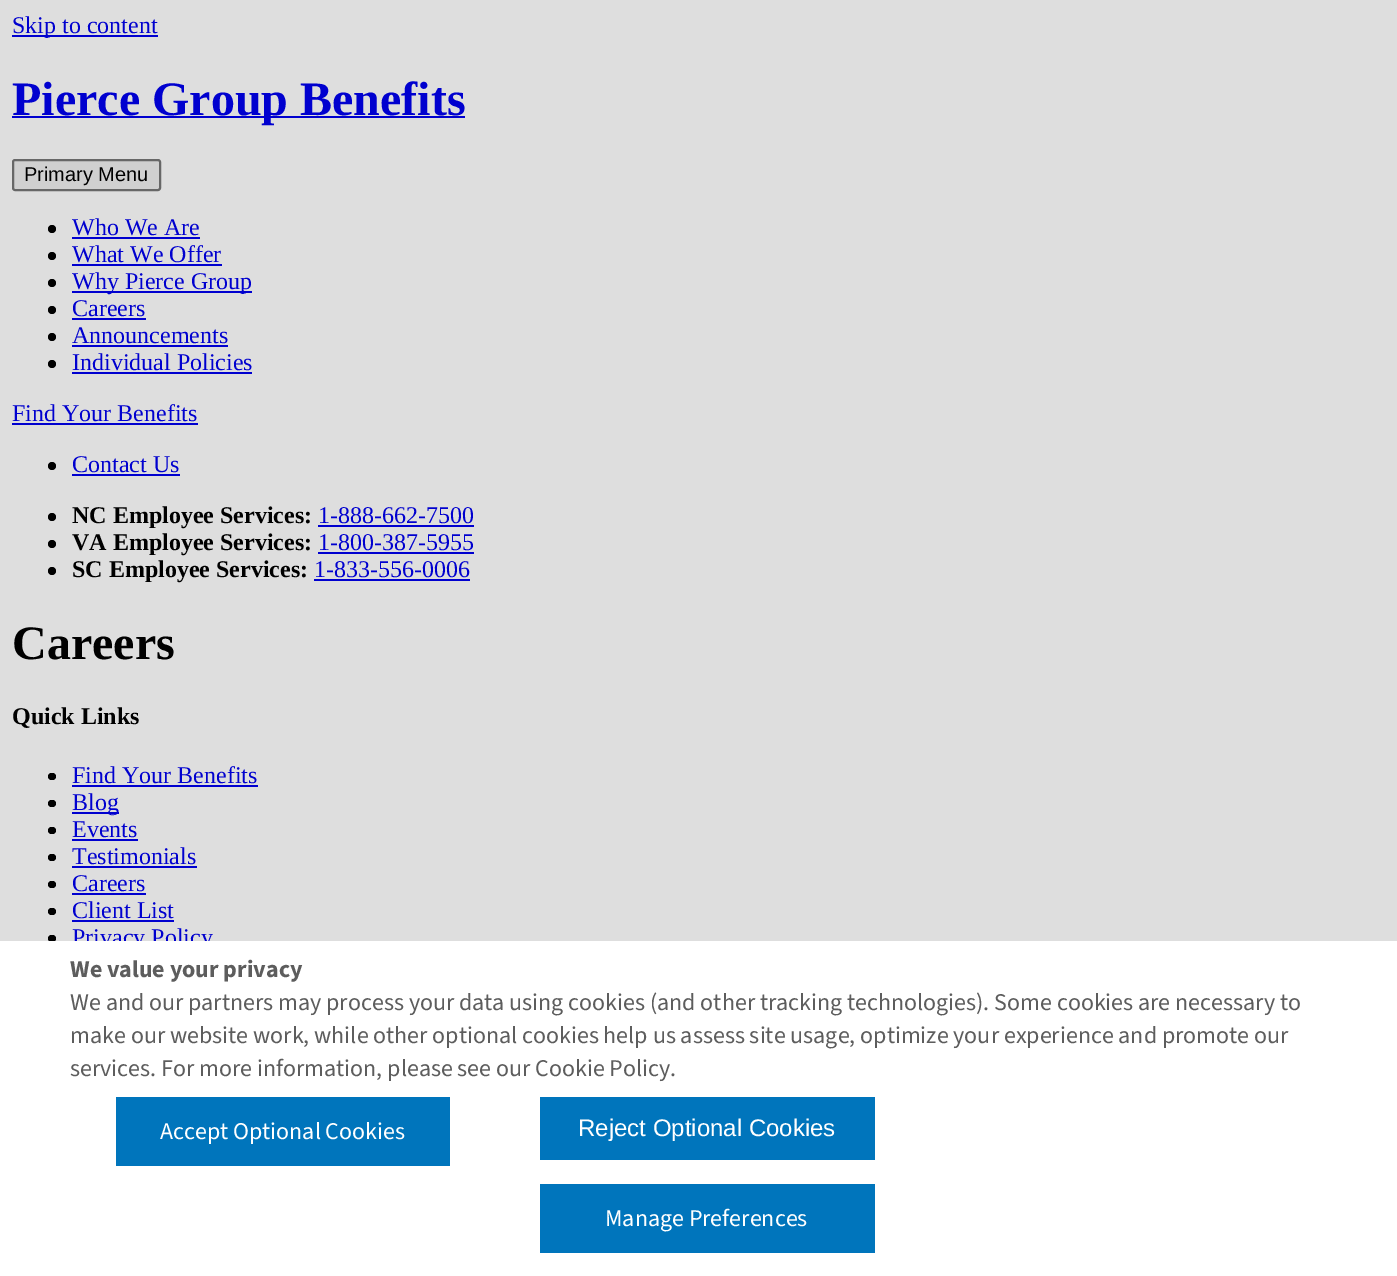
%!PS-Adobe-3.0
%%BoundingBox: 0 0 1397 1276
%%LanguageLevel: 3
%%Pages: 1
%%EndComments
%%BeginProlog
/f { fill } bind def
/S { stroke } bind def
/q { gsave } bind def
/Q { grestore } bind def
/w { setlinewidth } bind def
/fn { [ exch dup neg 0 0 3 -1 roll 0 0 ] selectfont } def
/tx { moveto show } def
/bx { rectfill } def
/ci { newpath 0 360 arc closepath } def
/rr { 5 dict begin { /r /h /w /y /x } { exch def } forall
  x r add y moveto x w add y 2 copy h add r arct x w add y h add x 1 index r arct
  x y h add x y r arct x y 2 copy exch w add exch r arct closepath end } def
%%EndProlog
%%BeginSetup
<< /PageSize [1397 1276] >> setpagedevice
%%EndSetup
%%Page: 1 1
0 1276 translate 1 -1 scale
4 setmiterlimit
0.871 setgray
0 0 1397 1276 bx
0 0 0.812 setrgbcolor
12 35 146 2 bx
/LiberationSerif-Regular 24 fn
(Skip to content) 12 33 tx
12 116 453 2 bx
/LiberationSerif-Bold 48 fn
(Pierce Group Benefits) 12 115 tx
0.816 setgray
13 160 147 30 2 rr q f Q
0.404 setgray
2 w
S
/LiberationSans-Regular 20 fn
0 setgray
(Primary Menu) 24 181 tx
52 229 4 ci f
/LiberationSerif-Regular 24 fn
0 0 0.812 setrgbcolor
(Who We Are) 72 235 tx
72 237 128 2 bx
0 setgray
52 256 4 ci f
0 0 0.812 setrgbcolor
(What We Offer) 72 262 tx
72 264 150 2 bx
0 setgray
52 283 4 ci f
0 0 0.812 setrgbcolor
72 291 180 2 bx
(Why Pierce Group) 72 289 tx
0 setgray
52 310 4 ci f
0 0 0.812 setrgbcolor
(Careers) 72 316 tx
72 318 74 2 bx
0 setgray
52 337 4 ci f
0 0 0.812 setrgbcolor
(Announcements) 72 343 tx
72 345 156 2 bx
0 setgray
52 364 4 ci f
0 0 0.812 setrgbcolor
(Individual Policies) 72 370 tx
72 372 180 2 bx
(Find Your Benefits) 12 421 tx
12 423 186 2 bx
0 setgray
52 466 4 ci f
0 0 0.812 setrgbcolor
(Contact Us) 72 472 tx
72 474 108 2 bx
0 setgray
52 517 4 ci f
/LiberationSerif-Bold 24 fn
(NC Employee Services:) 72 523 tx
/LiberationSerif-Regular 24 fn
0 0 0.812 setrgbcolor
(1-888-662-7500) 318 523 tx
318 525 156 2 bx
0 setgray
52 544 4 ci f
/LiberationSerif-Bold 24 fn
(VA Employee Services:) 72 550 tx
/LiberationSerif-Regular 24 fn
0 0 0.812 setrgbcolor
(1-800-387-5955) 318 550 tx
318 552 156 2 bx
0 setgray
52 571 4 ci f
/LiberationSerif-Bold 24 fn
(SC Employee Services:) 72 577 tx
/LiberationSerif-Regular 24 fn
0 0 0.812 setrgbcolor
(1-833-556-0006) 314 577 tx
314 579 156 2 bx
/LiberationSerif-Bold 48 fn
0 setgray
(Careers) 12 659 tx
/LiberationSerif-Bold 24 fn
(Quick Links) 12 724 tx
48 773 8 7 3.5 rr f
/LiberationSerif-Regular 24 fn
0 0 0.812 setrgbcolor
(Find Your Benefits) 72 783 tx
72 785 186 2 bx
0 setgray
48 800 8 7 3.5 rr f
0 0 0.812 setrgbcolor
72 812 47 2 bx
(Blog) 72 810 tx
0 setgray
48 827 8 7 3.5 rr f
0 0 0.812 setrgbcolor
(Events) 72 837 tx
72 839 66 2 bx
0 setgray
48 854 8 7 3.5 rr f
0 0 0.812 setrgbcolor
(Testimonials) 72 864 tx
72 866 125 2 bx
0 setgray
48 881 8 7 3.5 rr f
0 0 0.812 setrgbcolor
(Careers) 72 891 tx
72 893 74 2 bx
0 setgray
48 908 8 7 3.5 rr f
0 0 0.812 setrgbcolor
(Client List) 72 918 tx
72 920 102 2 bx
0 setgray
48 935 8 7 3.5 rr f
0 0 0.812 setrgbcolor
(Privacy Policy) 72 945 tx
1 setgray
0 941 1397 335 bx
/SourceSans3-Bold 24 fn
0.365 setgray
(We value your privacy) 70 977 tx
/SourceSans3-Regular 24 fn
(We and our partners may process your data using cookies \(and other tracking technologies\). Some cookies are necessary to) 70 1010 tx
(make our website work, while other optional cookies help us assess site usage, optimize your experience and promote our) 70 1043 tx
(services. For more information, please see our Cookie Policy.) 70 1076 tx
0 0.459 0.737 setrgbcolor
116 1097 334 69 bx
1 setgray
(Accept Optional Cookies) 160 1139 tx
0 0.459 0.737 setrgbcolor
540 1097 335 63 bx
/LiberationSans-Regular 24 fn
1 setgray
(Reject Optional Cookies) 578 1136 tx
0 0.459 0.737 setrgbcolor
540 1184 335 69 bx
/SourceSans3-Regular 24 fn
1 setgray
(Manage Preferences) 605 1226 tx
showpage
%%EOF
